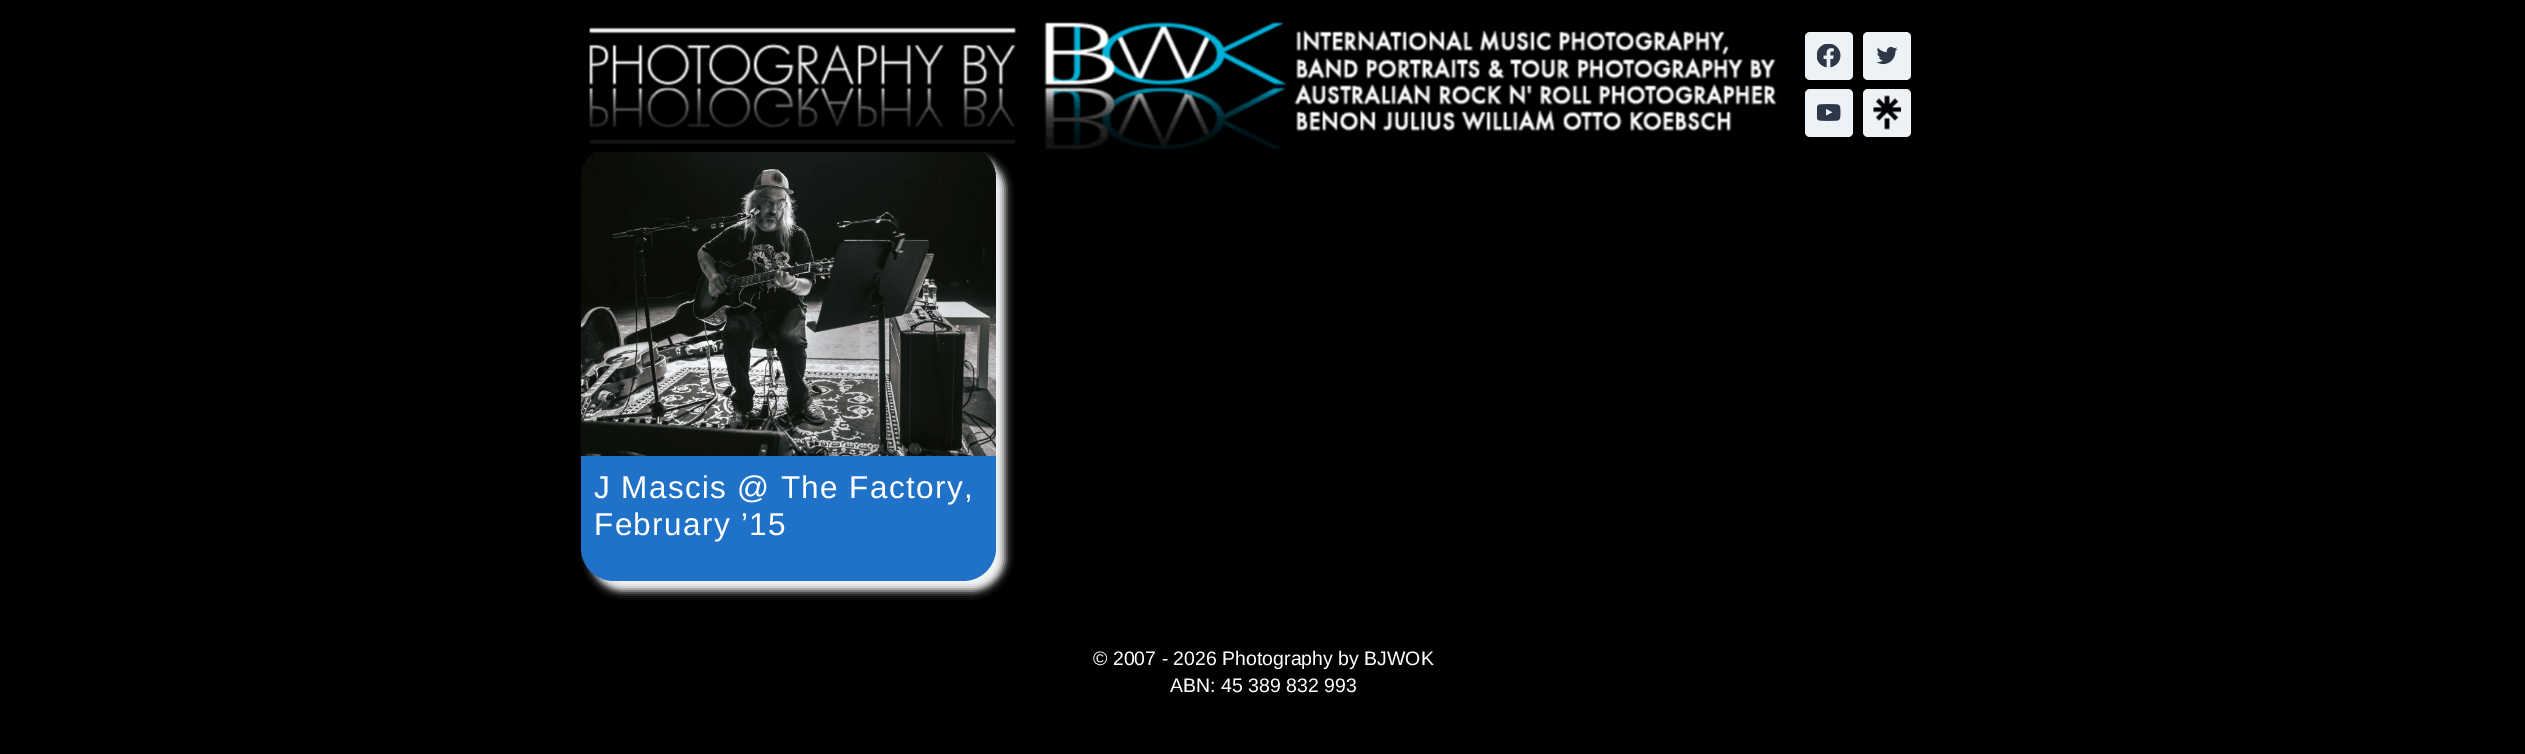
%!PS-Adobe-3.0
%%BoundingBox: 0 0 2525 754
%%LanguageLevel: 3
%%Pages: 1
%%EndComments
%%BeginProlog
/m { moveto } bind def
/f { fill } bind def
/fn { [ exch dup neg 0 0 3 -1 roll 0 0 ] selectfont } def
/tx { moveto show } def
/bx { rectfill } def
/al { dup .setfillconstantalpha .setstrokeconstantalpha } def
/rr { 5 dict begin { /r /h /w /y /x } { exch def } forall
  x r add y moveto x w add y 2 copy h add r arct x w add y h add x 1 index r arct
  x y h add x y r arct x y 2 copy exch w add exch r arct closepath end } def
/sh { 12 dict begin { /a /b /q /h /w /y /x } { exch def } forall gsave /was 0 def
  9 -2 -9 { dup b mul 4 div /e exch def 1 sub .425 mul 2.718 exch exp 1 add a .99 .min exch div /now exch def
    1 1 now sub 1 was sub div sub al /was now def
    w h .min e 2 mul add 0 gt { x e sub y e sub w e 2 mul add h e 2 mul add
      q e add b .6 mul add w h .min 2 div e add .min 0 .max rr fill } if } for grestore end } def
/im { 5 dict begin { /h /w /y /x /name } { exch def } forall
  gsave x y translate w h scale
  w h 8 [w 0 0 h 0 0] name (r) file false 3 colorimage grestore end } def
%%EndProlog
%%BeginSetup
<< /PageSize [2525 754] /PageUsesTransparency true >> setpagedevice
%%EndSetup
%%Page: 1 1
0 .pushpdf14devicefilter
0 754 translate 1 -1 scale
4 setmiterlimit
0 setgray
0 0 2525 754 bx
0.973 0.976 0.984 setrgbcolor
590 156 415 435 33 4 1 sh
0.122 0.447 0.784 setrgbcolor
581 146 415 435 33 rr f
0 setgray
595 146 396 6 bx
(image0.raw) 589 22 1188 128 im
0.929 0.949 0.969 setrgbcolor
1805 32 48 48 5 rr f
(image1.raw) 1817 44 24 24 im
1863 32 48 48 5 rr f
(image2.raw) 1876 46 22 19 im
1805 89 48 48 5 rr f
(image3.raw) 1817 104 24 17 im
1863 89 48 48 5 rr f
(image4.raw) 1873 95 28 35 im
(image5.raw) 580 152 416 304 im
/LiberationSans-Regular 31.5 fn
1 setgray
594 498 m 1.35 0 (J Mascis @ The Factory,) ashow
594 535 m 1.35 0 (February ’15) ashow
/LiberationSans-Regular 19.5 fn
(© 2007 - 2026 Photography by BJWOK) 1093 665 tx
(ABN: 45 389 832 993) 1170 692 tx
.poppdf14devicefilter showpage
%%EOF
